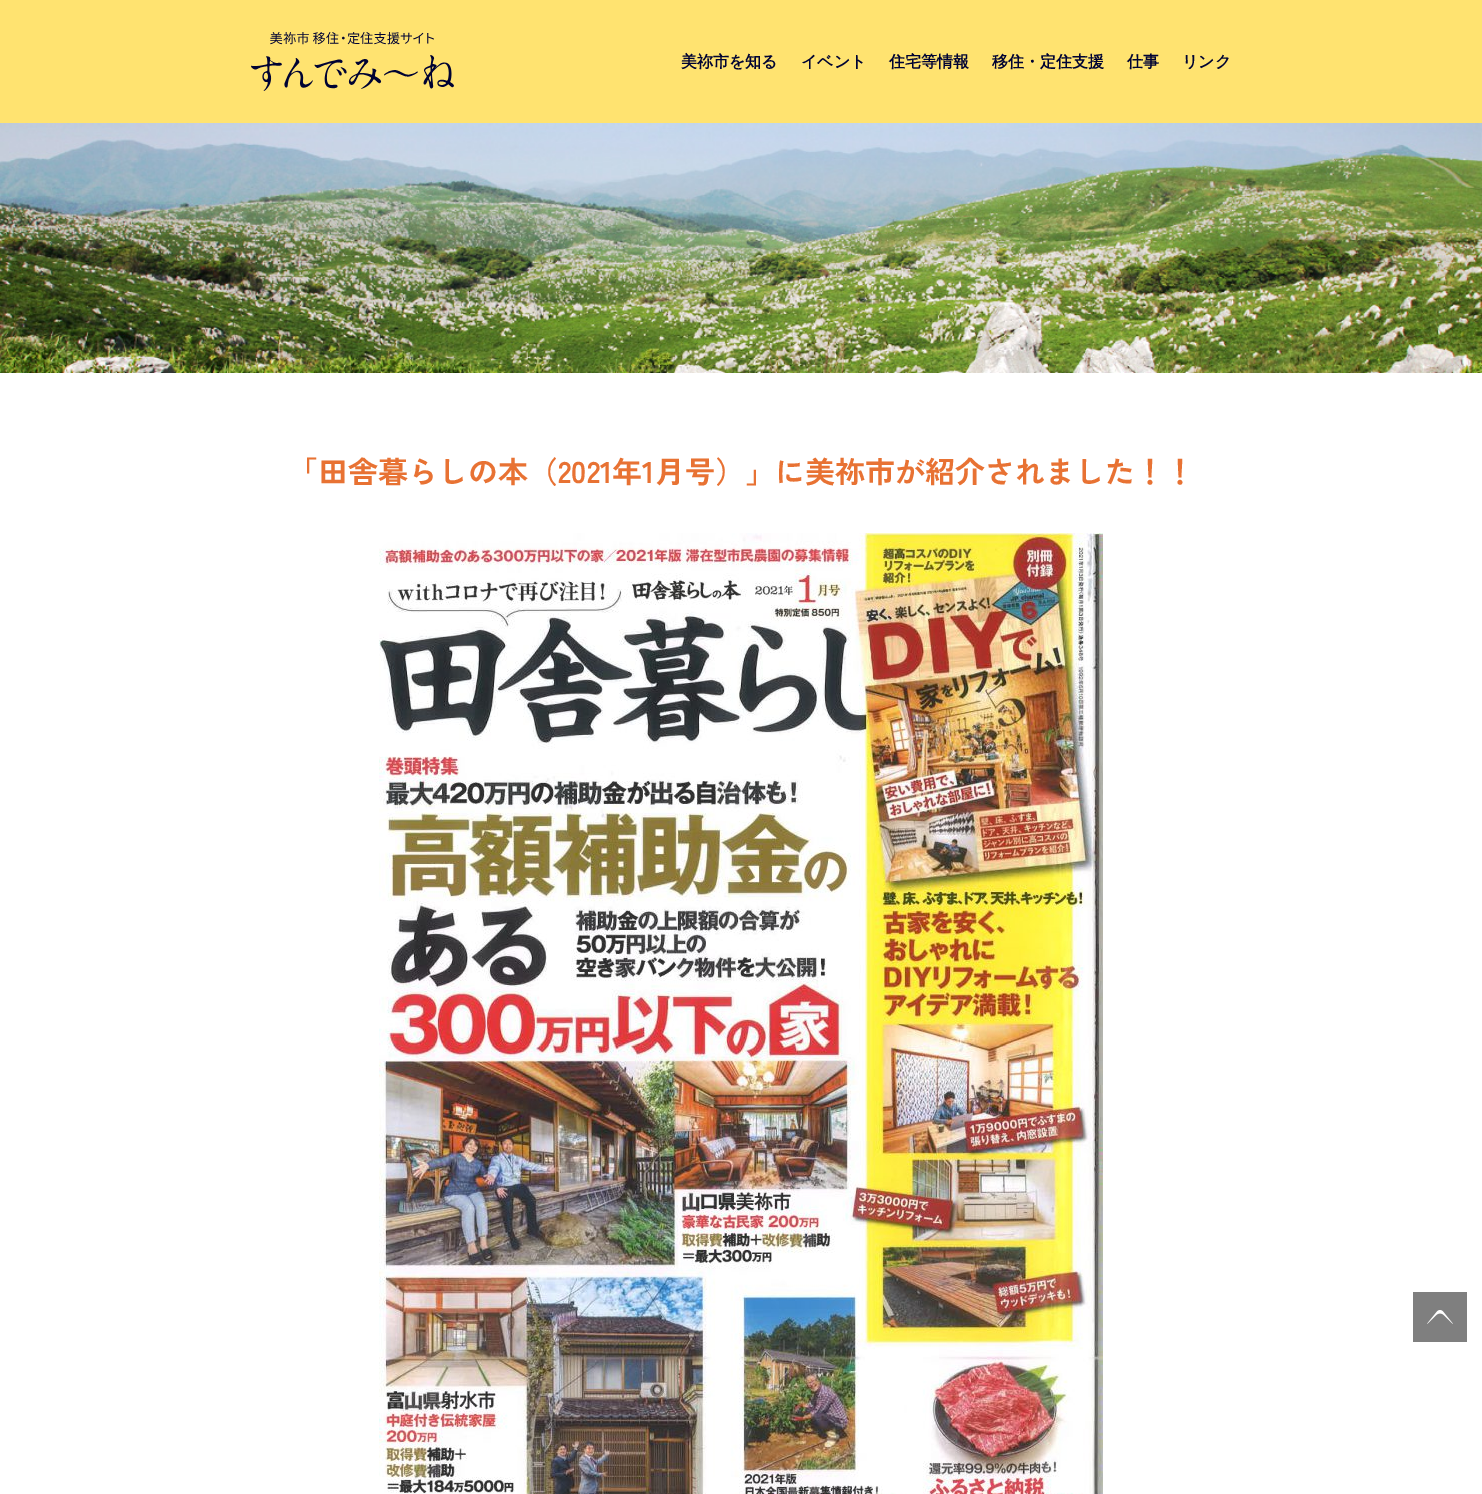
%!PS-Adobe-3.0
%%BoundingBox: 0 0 1482 1494
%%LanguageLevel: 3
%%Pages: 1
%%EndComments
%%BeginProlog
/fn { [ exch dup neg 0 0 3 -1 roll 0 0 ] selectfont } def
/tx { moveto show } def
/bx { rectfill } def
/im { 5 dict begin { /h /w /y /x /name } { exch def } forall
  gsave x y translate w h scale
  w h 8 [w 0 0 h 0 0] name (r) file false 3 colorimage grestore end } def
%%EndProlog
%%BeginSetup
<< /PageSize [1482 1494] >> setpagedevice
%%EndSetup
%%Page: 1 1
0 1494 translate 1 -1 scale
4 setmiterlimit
1 setgray
0 0 1482 1494 bx
1 0.89 0.439 setrgbcolor
0 0 1482 123 bx
(image0.raw) 251 32 203 59 im
/WenQuanYiZenHei-Bold 16 fn
0 0.012 0.2 setrgbcolor
(美祢市を知る) 681 67 tx
(イベント) 801 67 tx
(住宅等情報) 889 67 tx
(移住・定住支援) 992 67 tx
(仕事) 1127 67 tx
(リンク) 1182 67 tx
(image1.raw) 0 123 1482 250 im
/ZenKakuGothicNew-Bold 30 fn
0.91 0.447 0.2 setrgbcolor
(「田舎暮らしの本（2021年1月号）」に美祢市が紹介されました！！) 288 483 tx
(image2.raw) 379 533 724 961 im
(image3.raw) 1413 1292 54 50 im
showpage
%%EOF
